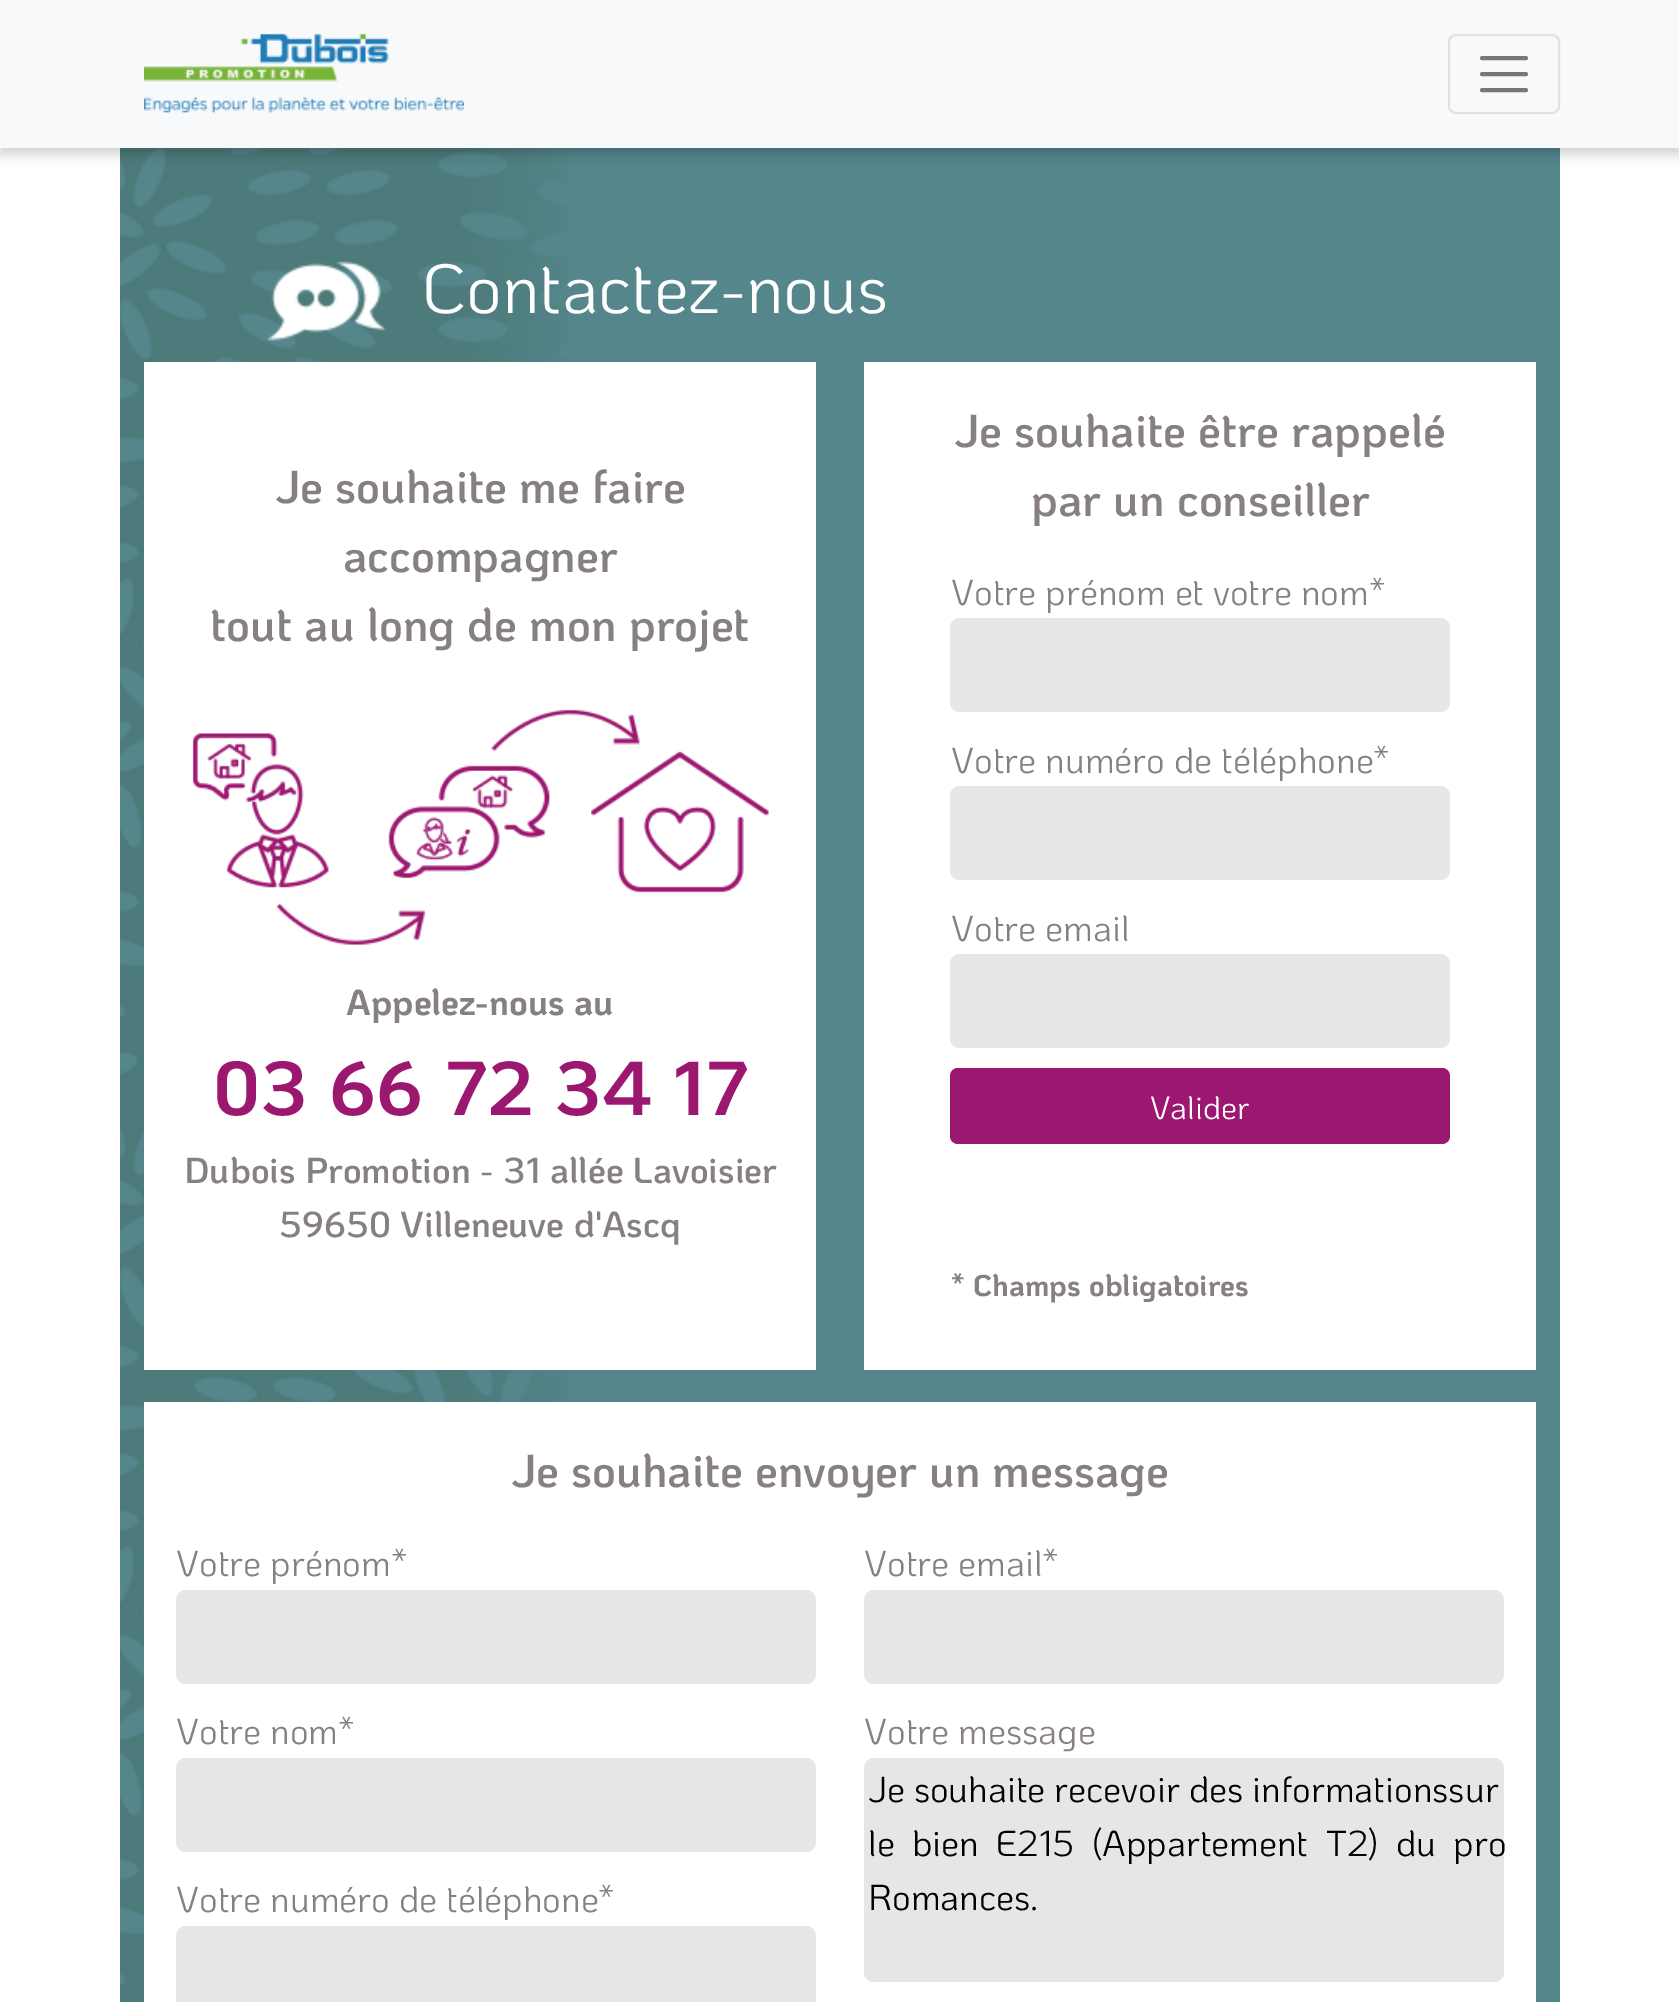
%!PS-Adobe-3.0
%%BoundingBox: 0 0 1679 2002
%%LanguageLevel: 3
%%Pages: 1
%%EndComments
%%BeginProlog
/m { moveto } bind def
/l { lineto } bind def
/f { fill } bind def
/S { stroke } bind def
/w { setlinewidth } bind def
/fn { [ exch dup neg 0 0 3 -1 roll 0 0 ] selectfont } def
/tx { moveto show } def
/bx { rectfill } def
/al { dup .setfillconstantalpha .setstrokeconstantalpha } def
/rr { 5 dict begin { /r /h /w /y /x } { exch def } forall
  x r add y moveto x w add y 2 copy h add r arct x w add y h add x 1 index r arct
  x y h add x y r arct x y 2 copy exch w add exch r arct closepath end } def
/sh { 12 dict begin { /a /b /q /h /w /y /x } { exch def } forall gsave /was 0 def
  9 -2 -9 { dup b mul 4 div /e exch def 1 sub .425 mul 2.718 exch exp 1 add a .99 .min exch div /now exch def
    1 1 now sub 1 was sub div sub al /was now def
    w h .min e 2 mul add 0 gt { x e sub y e sub w e 2 mul add h e 2 mul add
      q e add b .6 mul add w h .min 2 div e add .min 0 .max rr fill } if } for grestore end } def
/im { 5 dict begin { /h /w /y /x /name } { exch def } forall
  gsave x y translate w h scale
  w h 8 [w 0 0 h 0 0] name (r) file false 3 colorimage grestore end } def
%%EndProlog
%%BeginSetup
<< /PageSize [1679 2002] /PageUsesTransparency true >> setpagedevice
%%EndSetup
%%Page: 1 1
0 .pushpdf14devicefilter
0 2002 translate 1 -1 scale
4 setmiterlimit
1 setgray
0 0 1679 2002 bx
0.329 0.525 0.549 setrgbcolor
568 148 992 1854 bx
(image1.raw) 120 148 448 1854 im
0 setgray
0 6 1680 148 0 6 0.19 sh
0.973 0.976 0.98 setrgbcolor
0 0 1679 148 bx
(image0.raw) 144 33 320 80 im
0.882 0.882 0.886 setrgbcolor
2 w
1449 35 110 78 7 rr S
0.467 0.467 0.471 setrgbcolor
4 w
1 setlinecap
1482 58 m 1526 58 l 1482 74 m 1526 74 l 1482 90 m 1526 90 l S
(image2.raw) 267 261 119 80 im
/KoHo-Regular 69.25 fn
1 setgray
(Contactez-nous) 422 313 tx
144 362 672 1008 bx
/KoHo-SemiBold 46 fn
0.529 0.502 0.502 setrgbcolor
(Je souhaite me faire) 275 503 tx
(accompagner) 343 572 tx
(tout au long de mon projet) 210 641 tx
(image3.raw) 192 709 577 236 im
/KoHo-Bold 36 fn
(Appelez-nous au) 346 1015 tx
/KoHo-Bold 76 fn
0.612 0.094 0.439 setrgbcolor
(03 66 72 34 17) 213 1115 tx
/KoHo-SemiBold 36 fn
0.529 0.502 0.502 setrgbcolor
(Dubois Promotion - 31 allée Lavoisier) 184 1183 tx
(59650 Villeneuve d'Ascq) 279 1237 tx
1 setgray
864 362 672 1008 bx
/KoHo-SemiBold 46 fn
0.529 0.502 0.502 setrgbcolor
(Je souhaite être rappelé) 954 447 tx
(par un conseiller) 1031 516 tx
/KoHo-Regular 36 fn
(Votre prénom et votre nom*) 951 605 tx
0.902 setgray
950 618 500 94 10 rr f
0.529 0.502 0.502 setrgbcolor
(Votre numéro de téléphone*) 951 773 tx
0.902 setgray
950 786 500 94 10 rr f
0.529 0.502 0.502 setrgbcolor
(Votre email) 951 941 tx
0.902 setgray
950 954 500 94 10 rr f
0.612 0.094 0.439 setrgbcolor
950 1068 500 76 8 rr f
/KoHo-Regular 32 fn
1 setgray
(Valider) 1150 1119 tx
/KoHo-Bold 30 fn
0.529 0.502 0.502 setrgbcolor
(* Champs obligatoires) 951 1296 tx
1 setgray
144 1402 1392 600 bx
/KoHo-SemiBold 46 fn
0.529 0.502 0.502 setrgbcolor
(Je souhaite envoyer un message) 511 1487 tx
/KoHo-Regular 36 fn
(Votre prénom*) 176 1576 tx
0.902 setgray
176 1590 640 94 10 rr f
0.529 0.502 0.502 setrgbcolor
(Votre nom*) 176 1744 tx
0.902 setgray
176 1758 640 94 10 rr f
0.529 0.502 0.502 setrgbcolor
(Votre numéro de téléphone*) 176 1912 tx
0.902 setgray
176 1926 640 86 10 rr f
0.529 0.502 0.502 setrgbcolor
(Votre email*) 864 1576 tx
0.902 setgray
864 1590 640 94 10 rr f
0.529 0.502 0.502 setrgbcolor
(Votre message) 864 1744 tx
0.902 setgray
864 1758 640 224 10 rr f
0 setgray
(Je souhaite recevoir des informationssur) 868 1802 tx
868 1856 m 8.5 0 32 (le bien E215 \(Appartement T2\) du) widthshow
(pro) 1453 1856 tx
(Romances.) 868 1910 tx
.poppdf14devicefilter showpage
%%EOF
